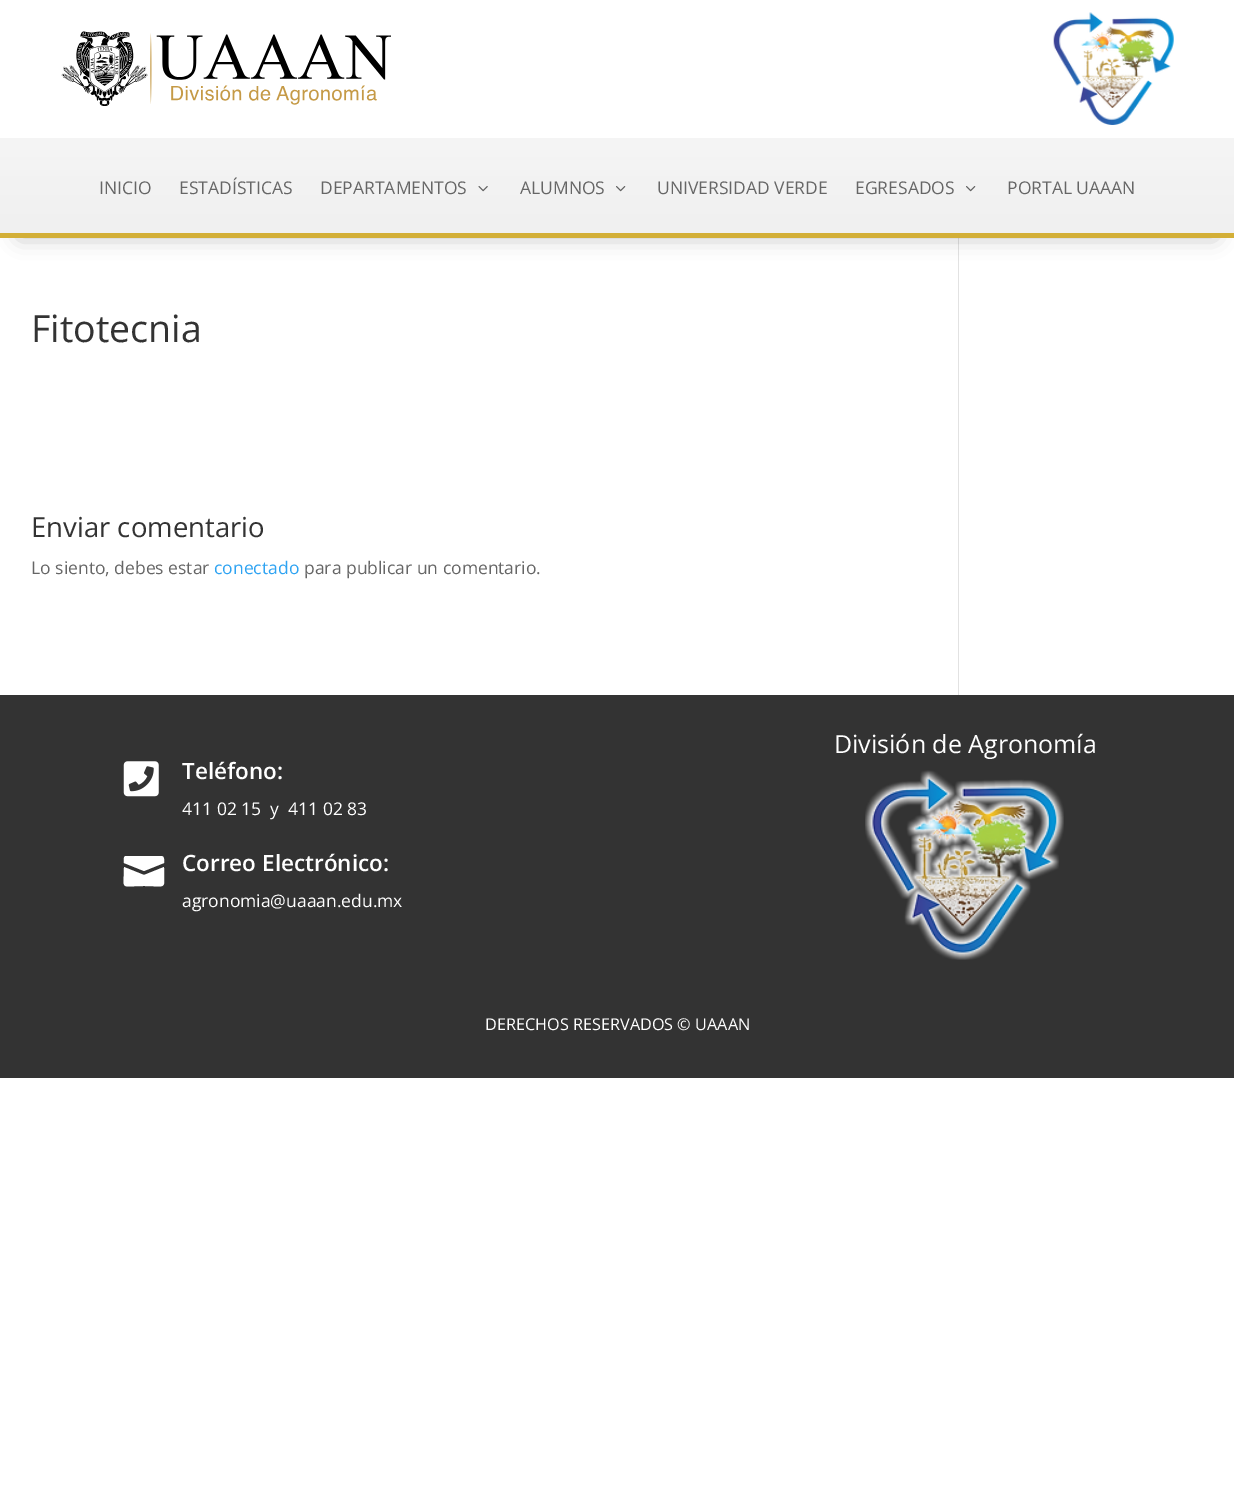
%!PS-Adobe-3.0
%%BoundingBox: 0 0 1234 1502
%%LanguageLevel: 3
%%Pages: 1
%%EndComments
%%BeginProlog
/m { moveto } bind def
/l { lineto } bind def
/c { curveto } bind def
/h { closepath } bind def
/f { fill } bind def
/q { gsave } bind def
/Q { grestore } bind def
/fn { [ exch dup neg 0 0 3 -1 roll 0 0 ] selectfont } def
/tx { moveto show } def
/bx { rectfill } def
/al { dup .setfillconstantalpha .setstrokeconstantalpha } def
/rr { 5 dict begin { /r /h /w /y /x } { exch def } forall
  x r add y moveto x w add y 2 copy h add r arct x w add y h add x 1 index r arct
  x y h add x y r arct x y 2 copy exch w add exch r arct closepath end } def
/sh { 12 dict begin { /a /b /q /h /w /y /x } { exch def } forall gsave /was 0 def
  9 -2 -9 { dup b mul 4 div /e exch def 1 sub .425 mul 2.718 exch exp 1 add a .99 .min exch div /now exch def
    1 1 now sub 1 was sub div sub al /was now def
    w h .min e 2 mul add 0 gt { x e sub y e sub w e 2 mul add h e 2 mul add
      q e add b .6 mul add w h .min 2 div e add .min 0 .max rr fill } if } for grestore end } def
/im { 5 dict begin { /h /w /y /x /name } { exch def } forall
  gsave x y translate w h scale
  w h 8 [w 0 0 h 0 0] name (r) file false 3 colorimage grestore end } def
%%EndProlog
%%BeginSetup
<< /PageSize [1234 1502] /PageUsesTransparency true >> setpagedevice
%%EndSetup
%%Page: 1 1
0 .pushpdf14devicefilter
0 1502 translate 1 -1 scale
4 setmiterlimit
1 setgray
0 0 1234 1502 bx
(image0.raw) 61 31 330 75 im
(image1.raw) 1053 12 121 113 im
0.886 setgray
958 238 1 457 bx
0 setgray
20 176 1195 60 0 11 0.3 sh
0.827 0.686 0.216 setrgbcolor
0 233 1234 5 bx
q 0 138 m 1234 138 l 1234 233 l 0 233 l h clip newpath
<< /ShadingType 2 /ColorSpace /DeviceRGB /Coords [618 137 618 233] /Extend [true true] /Function << /FunctionType 2 /Domain [0 1] /C0 [0.961 0.961 0.961] /C1 [0.941 0.941 0.941] /N 1 >> >> shfill Q
/OpenSans-Regular 17.5 fn
0.4 setgray
(INICIO) 99 194 tx
(ESTADÍSTICAS) 179 194 tx
(DEPARTAMENTOS) 320 194 tx
(image2.raw) 478 186 10 6 im
(ALUMNOS) 520 194 tx
(image3.raw) 616 186 10 6 im
(UNIVERSIDAD VERDE) 657 194 tx
(EGRESADOS) 855 194 tx
(image3.raw) 966 186 10 6 im
(PORTAL UAAAN) 1007 194 tx
/OpenSans-Regular 37.5 fn
0.2 setgray
(Fitotecnia) 31 342 tx
/OpenSans-Regular 27.5 fn
(Enviar comentario) 31 537 tx
/OpenSans-Regular 17.5 fn
0.4 setgray
(Lo siento, debes estar) 31 574 tx
0.18 0.639 0.949 setrgbcolor
(conectado) 214 574 tx
0.4 setgray
(para publicar un comentario.) 304 574 tx
0.2 setgray
0 695 1234 383 bx
/OpenSans-Regular 25 fn
1 setgray
(División de Agronomía) 834 753 tx
(image4.raw) 865 770 199 190 im
(image5.raw) 123 761 36 36 im
/OpenSans-SemiBold 22.5 fn
(Teléfono:) 182 779 tx
/OpenSans-Regular 17.5 fn
(411 02 15  y  411 02 83) 182 815 tx
161 856 m 126 856 l 123 856 124 861 124 863 c 144 871 l 164 863 l 164 861 165 856 161 856 c h 124 867 m 124 891 119 886 144 886 c 168 886 164 891 164 867 c 144 875 l h f
/OpenSans-SemiBold 22.5 fn
(Correo Electrónico:) 182 871 tx
/OpenSans-Regular 17.5 fn
(agronomia@uaaan.edu.mx) 182 907 tx
/OpenSans-Regular 16.25 fn
(DERECHOS RESERVADOS © UAAAN) 485 1030 tx
.poppdf14devicefilter showpage
%%EOF
